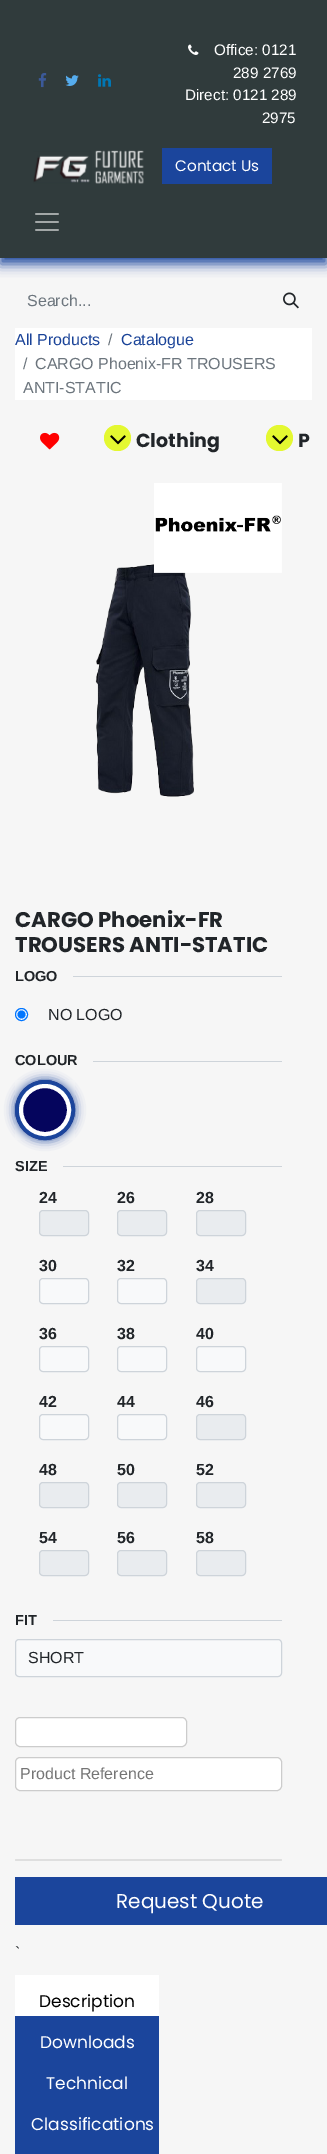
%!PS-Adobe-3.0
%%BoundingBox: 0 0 327 2154
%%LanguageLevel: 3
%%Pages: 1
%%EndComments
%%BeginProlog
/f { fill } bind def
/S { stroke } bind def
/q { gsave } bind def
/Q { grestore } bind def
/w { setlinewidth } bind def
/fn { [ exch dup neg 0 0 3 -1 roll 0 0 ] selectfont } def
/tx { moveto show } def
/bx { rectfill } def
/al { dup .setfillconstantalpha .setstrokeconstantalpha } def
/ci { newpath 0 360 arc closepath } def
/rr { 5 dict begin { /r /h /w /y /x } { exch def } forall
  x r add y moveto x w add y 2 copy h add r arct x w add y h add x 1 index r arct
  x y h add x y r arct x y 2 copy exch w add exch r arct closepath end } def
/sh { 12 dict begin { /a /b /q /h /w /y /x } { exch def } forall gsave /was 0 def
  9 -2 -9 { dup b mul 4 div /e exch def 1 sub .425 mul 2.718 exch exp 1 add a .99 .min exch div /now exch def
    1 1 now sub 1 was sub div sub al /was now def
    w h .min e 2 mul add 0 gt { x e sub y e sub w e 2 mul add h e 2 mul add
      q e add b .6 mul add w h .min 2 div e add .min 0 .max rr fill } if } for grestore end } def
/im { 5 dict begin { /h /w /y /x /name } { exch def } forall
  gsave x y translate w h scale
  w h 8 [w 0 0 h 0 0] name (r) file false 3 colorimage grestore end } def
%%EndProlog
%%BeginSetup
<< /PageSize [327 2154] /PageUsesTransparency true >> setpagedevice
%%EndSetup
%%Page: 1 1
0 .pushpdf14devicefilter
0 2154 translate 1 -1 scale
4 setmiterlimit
0.965 setgray
0 0 327 2154 bx
0.106 0.271 0.612 setrgbcolor
0 6 327 258 0 6 1 sh
0.188 0.231 0.235 setrgbcolor
0 0 327 258 bx
(image0.raw) 38 73 9 15 im
(image1.raw) 65 75 14 11 im
(image2.raw) 98 74 13 13 im
(image3.raw) 188 44 11 11 im
/LiberationSans-Regular 15.25 fn
1 setgray
(Office: 0121) 214 55 tx
(289 2769) 233 78 tx
(Direct: 0121 289) 185 100 tx
(2975) 262 123 tx
(image4.raw) 33 150 111 34 im
0.106 0.271 0.612 setrgbcolor
162 148 110 36 bx
/Poppins-Regular 15.25 fn
1 setgray
(Contact Us) 175 171 tx
(image5.raw) 35 213 24 18 im
/LiberationSans-Regular 16 fn
0.424 0.459 0.49 setrgbcolor
(Search...) 27 306 tx
(image6.raw) 283 292 16 17 im
1 setgray
15 328 297 72 bx
0.102 0.263 0.596 setrgbcolor
(All Products) 15 345 tx
0.424 0.459 0.49 setrgbcolor
(/) 108 345 tx
0.102 0.263 0.596 setrgbcolor
(Catalogue) 121 345 tx
0.424 0.459 0.49 setrgbcolor
(/) 23 369 tx
(CARGO Phoenix-FR TROUSERS) 35 369 tx
(ANTI-STATIC) 23 393 tx
(image7.raw) 40 432 20 18 im
0.894 0.973 0.188 setrgbcolor
104 425 27 26 13 rr f
(image8.raw) 110 435 16 10 im
/Poppins-Bold 19 fn
0.129 0.145 0.161 setrgbcolor
(Clothing) 136 447 tx
0.894 0.973 0.188 setrgbcolor
266 425 27 26 13 rr f
(image8.raw) 272 435 16 10 im
0.129 0.145 0.161 setrgbcolor
(P) 298 447 tx
(image10.raw) 95 564 99 233 im
(image9.raw) 154 483 128 90 im
/Poppins-Bold 21.25 fn
(CARGO Phoenix-FR) 15 927 tx
(TROUSERS ANTI-STATIC) 15 952 tx
/LiberationSans-Bold 14.5 fn
(LOGO) 15 981 tx
0.808 0.831 0.855 setrgbcolor
73 976 209 1 bx
1 setgray
21.5 1014.5 6 ci q f Q
0 0.459 1 setrgbcolor
S
21.5 1014.5 4 ci f
/LiberationSans-Regular 16 fn
0.129 0.145 0.161 setrgbcolor
(NO LOGO) 48 1020 tx
/LiberationSans-Bold 14.5 fn
(COLOUR) 15 1065 tx
0.808 0.831 0.855 setrgbcolor
93 1061 189 1 bx
0.106 0.271 0.612 setrgbcolor
15 1080 60 60 30 5 1 sh
(image11.raw) 15 1080 60 60 im
7 w
45 1110 26.5 ci S
1 setgray
4 w
45 1110 24 ci S
0.129 0.145 0.161 setrgbcolor
(SIZE) 15 1171 tx
0.808 0.831 0.855 setrgbcolor
63 1166 219 1 bx
/LiberationSans-Bold 16 fn
0.129 0.145 0.161 setrgbcolor
(24) 39 1203 tx
0.914 0.925 0.937 setrgbcolor
39.5 1210.5 49 25 3.5 rr q f Q
0.808 0.831 0.855 setrgbcolor
1 w
S
0.129 0.145 0.161 setrgbcolor
(26) 117 1203 tx
0.914 0.925 0.937 setrgbcolor
117.5 1210.5 49 25 3.5 rr q f Q
0.808 0.831 0.855 setrgbcolor
S
0.129 0.145 0.161 setrgbcolor
(28) 196 1203 tx
0.914 0.925 0.937 setrgbcolor
196.5 1210.5 49 25 3.5 rr q f Q
0.808 0.831 0.855 setrgbcolor
S
0.129 0.145 0.161 setrgbcolor
(30) 39 1271 tx
0.973 0.976 0.98 setrgbcolor
39.5 1278.5 49 25 3.5 rr q f Q
0.808 0.831 0.855 setrgbcolor
S
0.129 0.145 0.161 setrgbcolor
(32) 117 1271 tx
0.973 0.976 0.98 setrgbcolor
117.5 1278.5 49 25 3.5 rr q f Q
0.808 0.831 0.855 setrgbcolor
S
0.129 0.145 0.161 setrgbcolor
(34) 196 1271 tx
0.914 0.925 0.937 setrgbcolor
196.5 1278.5 49 25 3.5 rr q f Q
0.808 0.831 0.855 setrgbcolor
S
0.129 0.145 0.161 setrgbcolor
(36) 39 1339 tx
0.973 0.976 0.98 setrgbcolor
39.5 1346.5 49 25 3.5 rr q f Q
0.808 0.831 0.855 setrgbcolor
S
0.129 0.145 0.161 setrgbcolor
(38) 117 1339 tx
0.973 0.976 0.98 setrgbcolor
117.5 1346.5 49 25 3.5 rr q f Q
0.808 0.831 0.855 setrgbcolor
S
0.129 0.145 0.161 setrgbcolor
(40) 196 1339 tx
0.973 0.976 0.98 setrgbcolor
196.5 1346.5 49 25 3.5 rr q f Q
0.808 0.831 0.855 setrgbcolor
S
0.129 0.145 0.161 setrgbcolor
(42) 39 1407 tx
0.973 0.976 0.98 setrgbcolor
39.5 1414.5 49 25 3.5 rr q f Q
0.808 0.831 0.855 setrgbcolor
S
0.129 0.145 0.161 setrgbcolor
(44) 117 1407 tx
0.973 0.976 0.98 setrgbcolor
117.5 1414.5 49 25 3.5 rr q f Q
0.808 0.831 0.855 setrgbcolor
S
0.129 0.145 0.161 setrgbcolor
(46) 196 1407 tx
0.914 0.925 0.937 setrgbcolor
196.5 1414.5 49 25 3.5 rr q f Q
0.808 0.831 0.855 setrgbcolor
S
0.129 0.145 0.161 setrgbcolor
(48) 39 1475 tx
0.914 0.925 0.937 setrgbcolor
39.5 1482.5 49 25 3.5 rr q f Q
0.808 0.831 0.855 setrgbcolor
S
0.129 0.145 0.161 setrgbcolor
(50) 117 1475 tx
0.914 0.925 0.937 setrgbcolor
117.5 1482.5 49 25 3.5 rr q f Q
0.808 0.831 0.855 setrgbcolor
S
0.129 0.145 0.161 setrgbcolor
(52) 196 1475 tx
0.914 0.925 0.937 setrgbcolor
196.5 1482.5 49 25 3.5 rr q f Q
0.808 0.831 0.855 setrgbcolor
S
0.129 0.145 0.161 setrgbcolor
(54) 39 1543 tx
0.914 0.925 0.937 setrgbcolor
39.5 1550.5 49 25 3.5 rr q f Q
0.808 0.831 0.855 setrgbcolor
S
0.129 0.145 0.161 setrgbcolor
(56) 117 1543 tx
0.914 0.925 0.937 setrgbcolor
117.5 1550.5 49 25 3.5 rr q f Q
0.808 0.831 0.855 setrgbcolor
S
0.129 0.145 0.161 setrgbcolor
(58) 196 1543 tx
0.914 0.925 0.937 setrgbcolor
196.5 1550.5 49 25 3.5 rr q f Q
0.808 0.831 0.855 setrgbcolor
S
/LiberationSans-Bold 14.5 fn
0.129 0.145 0.161 setrgbcolor
(FIT) 15 1625 tx
0.808 0.831 0.855 setrgbcolor
53 1620 229 1 bx
0.973 0.976 0.98 setrgbcolor
15.5 1639.5 266 37 3.5 rr q f Q
0.808 0.831 0.855 setrgbcolor
S
/LiberationSans-Regular 16 fn
0.129 0.145 0.161 setrgbcolor
(SHORT) 28 1663 tx
1 setgray
15.5 1717.5 171 29 4.5 rr q f Q
0.8 setgray
S
1 setgray
15.5 1757.5 266 33 4.5 rr q f Q
0.8 setgray
S
0.459 setgray
(Product Reference) 20 1779 tx
0.875 setgray
15 1859 267 2 1 rr f
0.106 0.271 0.612 setrgbcolor
15 1877 312 48 bx
/Poppins-Regular 20 fn
1 setgray
(Request Quote) 116 1908 tx
/LiberationSans-Regular 16 fn
0.129 0.145 0.161 setrgbcolor
(`) 15 1958 tx
1 setgray
15 1975 144 41 bx
/Poppins-Regular 17 fn
0 setgray
(Description) 39 2007 tx
0.106 0.271 0.612 setrgbcolor
15 2016 144 138 bx
1 setgray
(Downloads) 40 2048 tx
(Technical) 46 2089 tx
(Classifications) 31 2130 tx
.poppdf14devicefilter showpage
%%EOF
